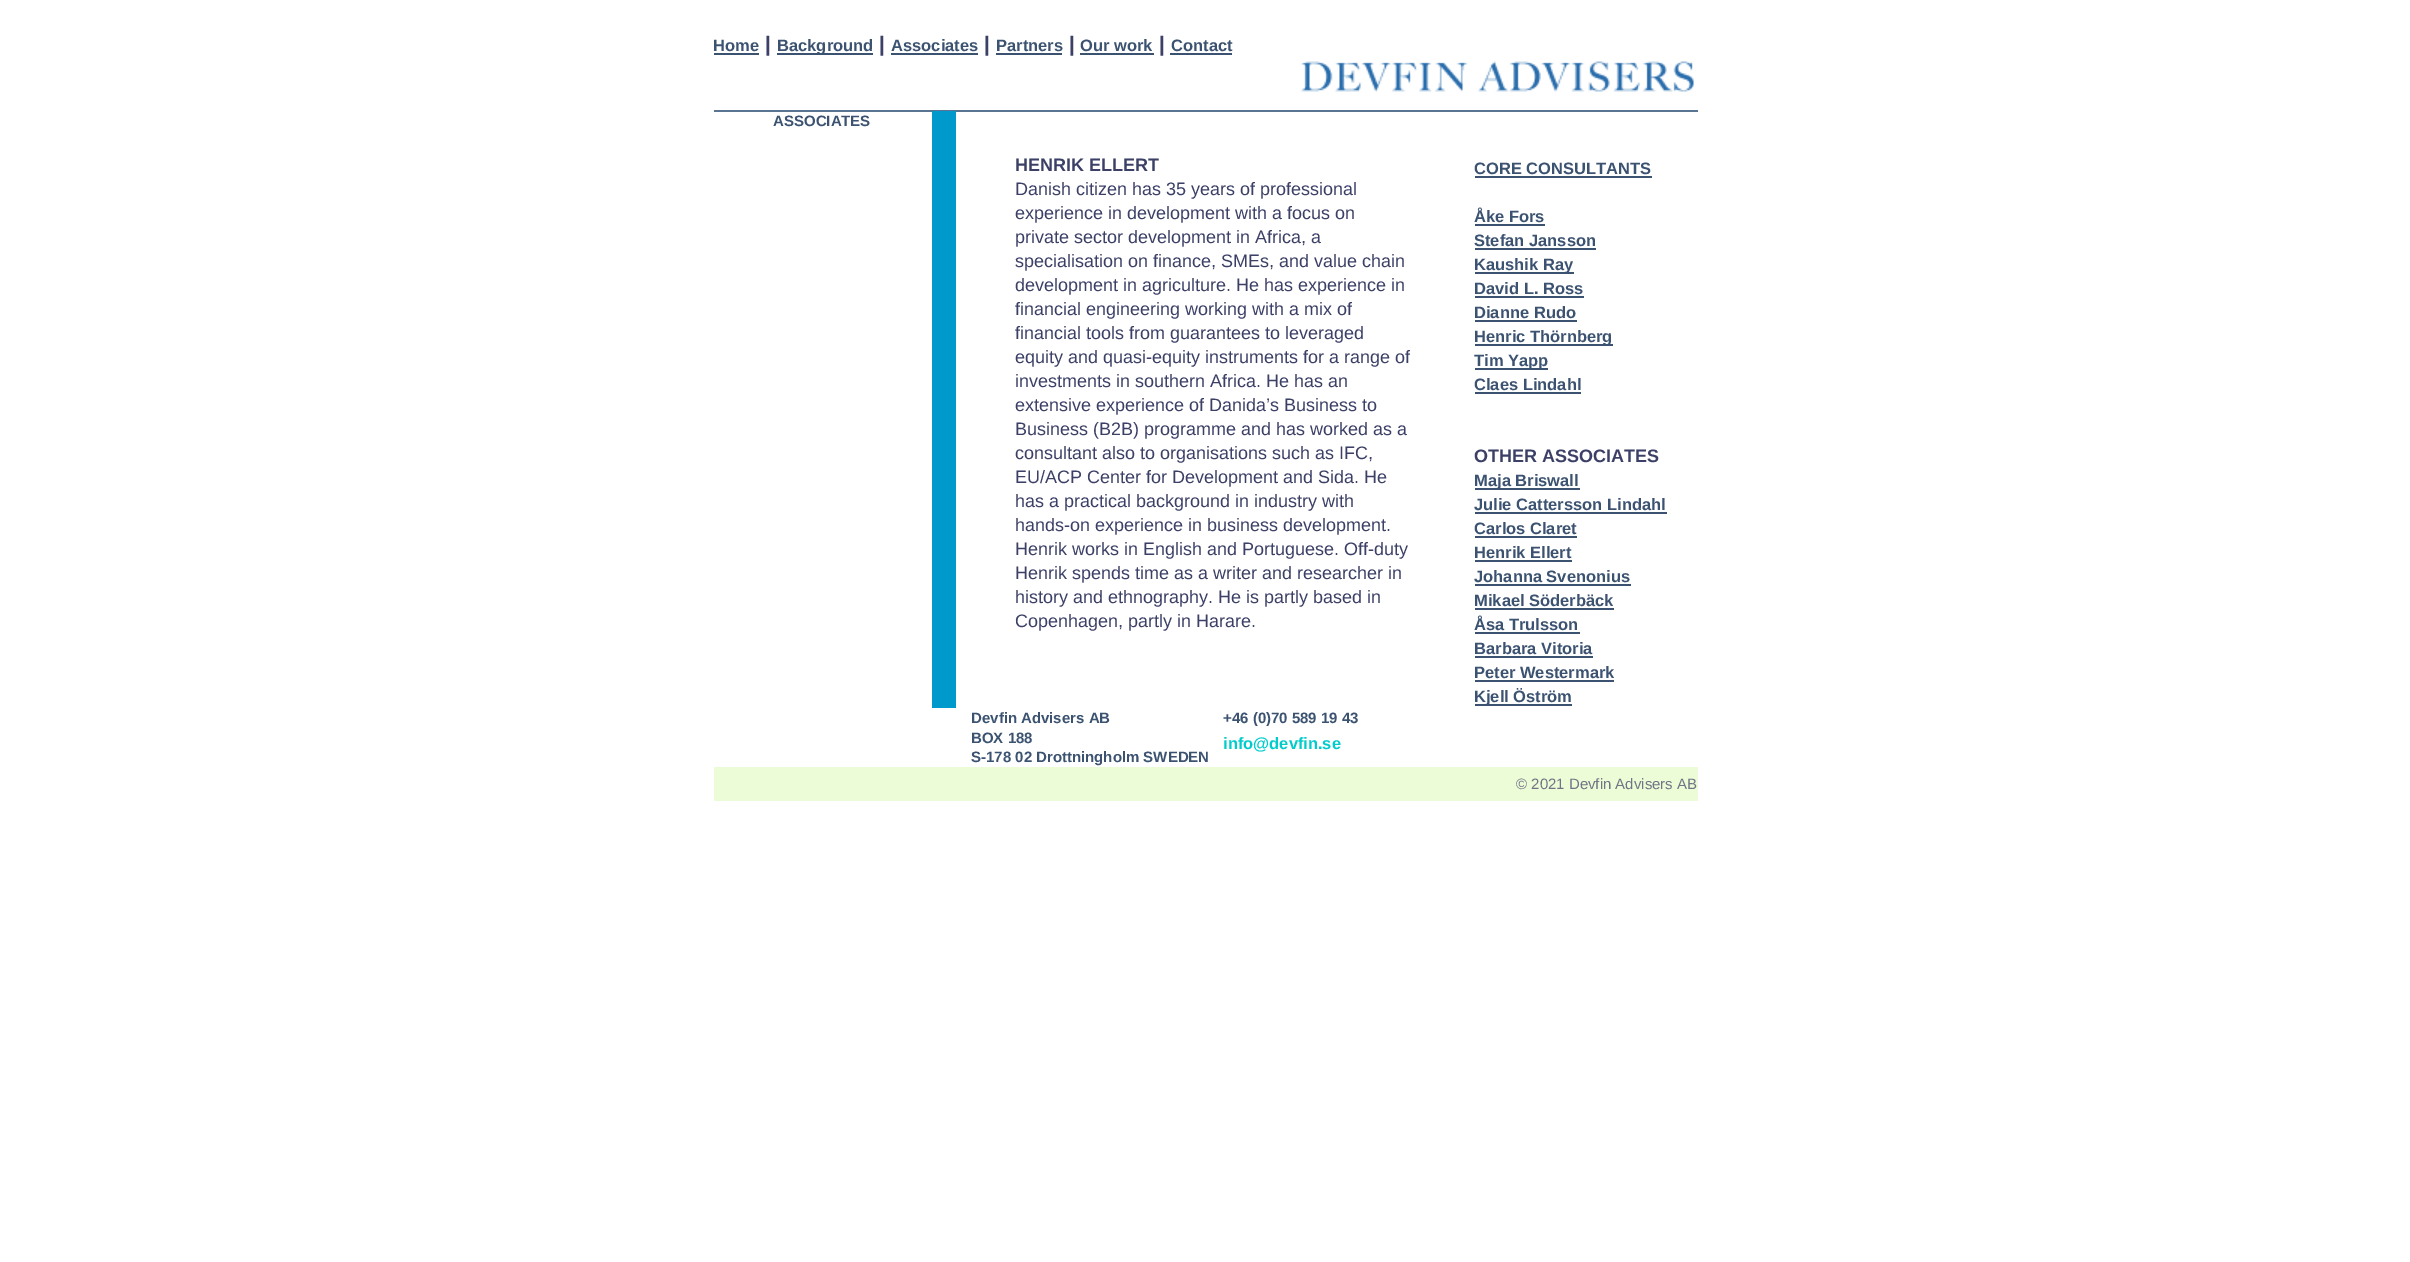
%!PS-Adobe-3.0
%%BoundingBox: 0 0 2410 1262
%%LanguageLevel: 3
%%Pages: 1
%%EndComments
%%BeginProlog
/fn { [ exch dup neg 0 0 3 -1 roll 0 0 ] selectfont } def
/tx { moveto show } def
/bx { rectfill } def
/im { 5 dict begin { /h /w /y /x /name } { exch def } forall
  gsave x y translate w h scale
  w h 8 [w 0 0 h 0 0] name (r) file false 3 colorimage grestore end } def
%%EndProlog
%%BeginSetup
<< /PageSize [2410 1262] >> setpagedevice
%%EndSetup
%%Page: 1 1
0 1262 translate 1 -1 scale
4 setmiterlimit
1 setgray
0 0 2410 1262 bx
/LiberationSans-Bold 16.5 fn
0.231 0.325 0.443 setrgbcolor
(Home) 713 51 tx
714 53 45 2 bx
/LiberationSans-Bold 21 fn
0.235 0.251 0.4 setrgbcolor
(|) 765 51 tx
0.231 0.325 0.443 setrgbcolor
777 53 96 2 bx
/LiberationSans-Bold 16.5 fn
(Background) 777 51 tx
/LiberationSans-Bold 21 fn
0.235 0.251 0.4 setrgbcolor
(|) 879 51 tx
/LiberationSans-Bold 16.5 fn
0.231 0.325 0.443 setrgbcolor
(Associates) 891 51 tx
891 53 87 2 bx
/LiberationSans-Bold 21 fn
0.235 0.251 0.4 setrgbcolor
(|) 984 51 tx
/LiberationSans-Bold 16.5 fn
0.231 0.325 0.443 setrgbcolor
(Partners) 996 51 tx
996 53 66 2 bx
/LiberationSans-Bold 21 fn
0.235 0.251 0.4 setrgbcolor
(|) 1069 51 tx
/LiberationSans-Bold 16.5 fn
0.231 0.325 0.443 setrgbcolor
(Our work) 1080 51 tx
1080 53 74 2 bx
/LiberationSans-Bold 21 fn
0.235 0.251 0.4 setrgbcolor
(|) 1159 51 tx
/LiberationSans-Bold 16.5 fn
0.231 0.325 0.443 setrgbcolor
(Contact) 1171 51 tx
1170 53 62 2 bx
(image0.raw) 1300 61 394 31 im
0.353 0.459 0.569 setrgbcolor
714 110 984 2 bx
/LiberationSans-Bold 15 fn
0.231 0.325 0.443 setrgbcolor
(ASSOCIATES) 773 126 tx
0 0.6 0.8 setrgbcolor
932 111 24 597 bx
/LiberationSans-Bold 18 fn
0.235 0.251 0.4 setrgbcolor
(HENRIK ELLERT) 1015 171 tx
/LiberationSans-Regular 18 fn
(Danish citizen has 35 years of professional) 1015 195 tx
(experience in development with a focus on) 1015 219 tx
(private sector development in Africa, a) 1015 243 tx
(specialisation on finance, SMEs, and value chain) 1015 267 tx
(development in agriculture. He has experience in) 1015 291 tx
(financial engineering working with a mix of) 1015 315 tx
(financial tools from guarantees to leveraged) 1015 339 tx
(equity and quasi-equity instruments for a range of) 1015 363 tx
(investments in southern Africa. He has an) 1015 387 tx
(extensive experience of Danida’s Business to) 1015 411 tx
(Business \(B2B\) programme and has worked as a) 1015 435 tx
(consultant also to organisations such as IFC,) 1015 459 tx
(EU/ACP Center for Development and Sida. He) 1015 483 tx
(has a practical background in industry with) 1015 507 tx
(hands-on experience in business development.) 1015 531 tx
(Henrik works in English and Portuguese. Off-duty) 1015 555 tx
(Henrik spends time as a writer and researcher in) 1015 579 tx
(history and ethnography. He is partly based in) 1015 603 tx
(Copenhagen, partly in Harare.) 1015 627 tx
/LiberationSans-Bold 16.5 fn
0.231 0.325 0.443 setrgbcolor
(CORE CONSULTANTS) 1474 174 tx
1475 176 177 2 bx
(Åke Fors) 1474 222 tx
1475 224 70 2 bx
(Stefan Jansson) 1474 246 tx
1475 248 121 2 bx
1475 272 99 2 bx
(Kaushik Ray) 1474 270 tx
(David L. Ross) 1474 294 tx
1475 296 109 2 bx
(Dianne Rudo) 1474 318 tx
1475 320 102 2 bx
1475 344 138 2 bx
(Henric Thörnberg) 1474 342 tx
1475 368 73 2 bx
(Tim Yapp) 1474 366 tx
(Claes Lindahl) 1474 390 tx
1475 392 106 2 bx
/LiberationSans-Bold 18 fn
0.235 0.251 0.4 setrgbcolor
(OTHER ASSOCIATES) 1474 462 tx
0.231 0.325 0.443 setrgbcolor
1475 488 105 2 bx
/LiberationSans-Bold 16.5 fn
(Maja Briswall) 1474 486 tx
(Julie Cattersson Lindahl) 1474 510 tx
1475 512 192 2 bx
(Carlos Claret) 1474 534 tx
1475 536 102 2 bx
(Henrik Ellert) 1474 558 tx
1475 560 97 2 bx
(Johanna Svenonius) 1474 582 tx
1475 584 156 2 bx
(Mikael Söderbäck) 1474 606 tx
1475 608 139 2 bx
(Åsa Trulsson) 1474 630 tx
1475 632 105 2 bx
(Barbara Vitoria) 1474 654 tx
1475 656 118 2 bx
(Peter Westermark) 1474 678 tx
1475 680 139 2 bx
1475 704 97 2 bx
(Kjell Öström) 1474 702 tx
/LiberationSans-Bold 15 fn
(Devfin Advisers AB) 971 723 tx
(BOX 188) 971 743 tx
(S-178 02 Drottningholm SWEDEN) 971 762 tx
(+46 \(0\)70 589 19 43) 1223 723 tx
/LiberationSans-Bold 16.5 fn
0 0.8 0.8 setrgbcolor
(info@devfin.se) 1223 749 tx
0.925 0.988 0.843 setrgbcolor
714 767 984 34 bx
/LiberationSans-Regular 15 fn
0.447 0.455 0.522 setrgbcolor
(© 2021 Devfin Advisers AB) 1516 789 tx
showpage
%%EOF
